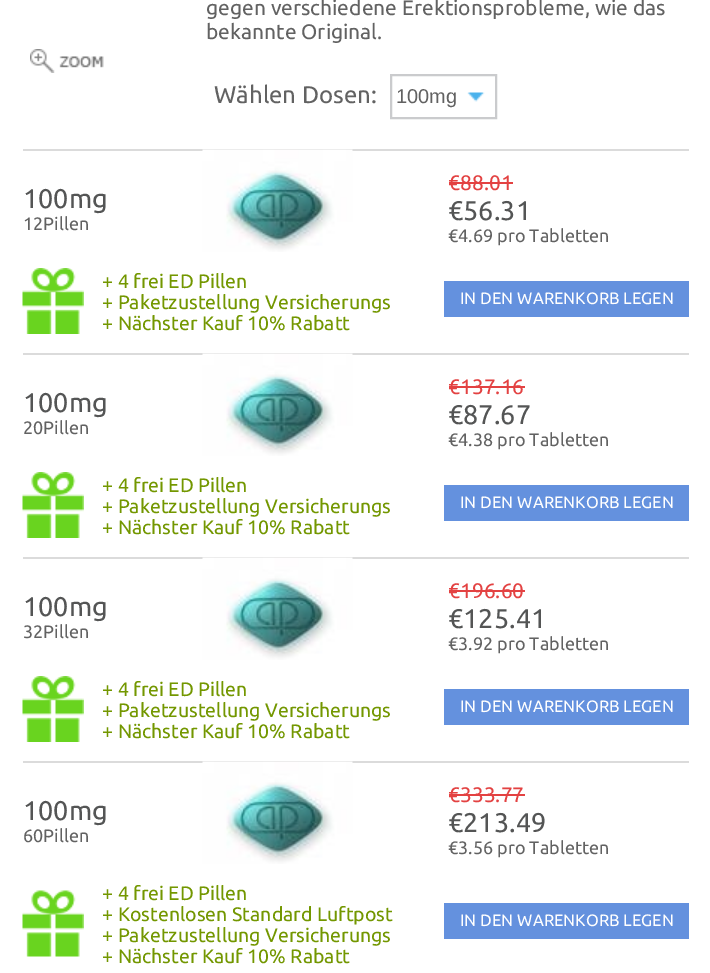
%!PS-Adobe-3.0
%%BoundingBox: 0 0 710 973
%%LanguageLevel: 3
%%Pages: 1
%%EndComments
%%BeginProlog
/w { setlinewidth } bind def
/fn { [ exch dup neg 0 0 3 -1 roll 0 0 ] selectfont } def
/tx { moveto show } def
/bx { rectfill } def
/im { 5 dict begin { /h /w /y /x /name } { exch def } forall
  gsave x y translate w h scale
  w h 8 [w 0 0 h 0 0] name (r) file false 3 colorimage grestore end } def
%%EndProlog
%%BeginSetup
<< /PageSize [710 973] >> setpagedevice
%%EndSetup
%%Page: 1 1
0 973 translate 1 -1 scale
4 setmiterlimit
1 setgray
0 0 710 973 bx
/Ubuntu-Regular 21 fn
0.384 setgray
(gegen verschiedene Erektionsprobleme, wie das) 206 15 tx
(bekannte Original.) 206 39 tx
(image0.raw) 30 49 74 24 im
/Ubuntu-Regular 24 fn
(Wählen Dosen:) 214 103 tx
(image1.raw) 467 92 18 10 im
0.792 0.796 0.804 setrgbcolor
2 w
391 75 105 43 rectstroke
/LiberationSans-Regular 20 fn
0.384 setgray
(100mg) 396 103 tx
0.859 setgray
23 149 666 2 bx
/Ubuntu-Regular 27 fn
0.329 0.333 0.333 setrgbcolor
(100mg) 23 208 tx
/Ubuntu-Regular 18 fn
0.384 setgray
(12Pillen) 23 230 tx
(image2.raw) 202 149 151 103 im
/Ubuntu-Regular 21 fn
0.89 0.259 0.259 setrgbcolor
(€88.01) 448 190 tx
449 182 64 2 bx
/Ubuntu-Regular 27 fn
0.329 0.333 0.333 setrgbcolor
(€56.31) 448 220 tx
/Ubuntu-Regular 18 fn
0.384 setgray
(€4.69 pro Tabletten) 448 242 tx
(image3.raw) 22 268 62 66 im
/Ubuntu-Regular 19.5 fn
0.451 0.592 0 setrgbcolor
(+ 4 frei ED Pillen) 102 288 tx
(+ Paketzustellung Versicherungs) 102 309 tx
(+ Nächster Kauf 10% Rabatt) 102 330 tx
0.392 0.569 0.871 setrgbcolor
444 281 245 36 bx
/Ubuntu-Regular 16.5 fn
1 setgray
(IN DEN WARENKORB LEGEN) 460 304 tx
0.859 setgray
23 353 666 2 bx
/Ubuntu-Regular 27 fn
0.329 0.333 0.333 setrgbcolor
(100mg) 23 412 tx
/Ubuntu-Regular 18 fn
0.384 setgray
(20Pillen) 23 434 tx
(image2.raw) 202 353 151 103 im
/Ubuntu-Regular 21 fn
0.89 0.259 0.259 setrgbcolor
(€137.16) 448 394 tx
449 386 76 2 bx
/Ubuntu-Regular 27 fn
0.329 0.333 0.333 setrgbcolor
(€87.67) 448 424 tx
/Ubuntu-Regular 18 fn
0.384 setgray
(€4.38 pro Tabletten) 448 446 tx
(image3.raw) 22 472 62 66 im
/Ubuntu-Regular 19.5 fn
0.451 0.592 0 setrgbcolor
(+ 4 frei ED Pillen) 102 492 tx
(+ Paketzustellung Versicherungs) 102 513 tx
(+ Nächster Kauf 10% Rabatt) 102 534 tx
0.392 0.569 0.871 setrgbcolor
444 485 245 36 bx
/Ubuntu-Regular 16.5 fn
1 setgray
(IN DEN WARENKORB LEGEN) 460 508 tx
0.859 setgray
23 557 666 2 bx
/Ubuntu-Regular 27 fn
0.329 0.333 0.333 setrgbcolor
(100mg) 23 616 tx
/Ubuntu-Regular 18 fn
0.384 setgray
(32Pillen) 23 638 tx
(image2.raw) 202 557 151 103 im
/Ubuntu-Regular 21 fn
0.89 0.259 0.259 setrgbcolor
(€196.60) 448 598 tx
449 590 76 2 bx
/Ubuntu-Regular 27 fn
0.329 0.333 0.333 setrgbcolor
(€125.41) 448 628 tx
/Ubuntu-Regular 18 fn
0.384 setgray
(€3.92 pro Tabletten) 448 650 tx
(image3.raw) 22 676 62 66 im
/Ubuntu-Regular 19.5 fn
0.451 0.592 0 setrgbcolor
(+ 4 frei ED Pillen) 102 696 tx
(+ Paketzustellung Versicherungs) 102 717 tx
(+ Nächster Kauf 10% Rabatt) 102 738 tx
0.392 0.569 0.871 setrgbcolor
444 689 245 36 bx
/Ubuntu-Regular 16.5 fn
1 setgray
(IN DEN WARENKORB LEGEN) 460 712 tx
0.859 setgray
23 761 666 2 bx
/Ubuntu-Regular 27 fn
0.329 0.333 0.333 setrgbcolor
(100mg) 23 820 tx
/Ubuntu-Regular 18 fn
0.384 setgray
(60Pillen) 23 842 tx
(image2.raw) 202 761 151 103 im
/Ubuntu-Regular 21 fn
0.89 0.259 0.259 setrgbcolor
(€333.77) 448 802 tx
449 794 76 2 bx
/Ubuntu-Regular 27 fn
0.329 0.333 0.333 setrgbcolor
(€213.49) 448 832 tx
/Ubuntu-Regular 18 fn
0.384 setgray
(€3.56 pro Tabletten) 448 854 tx
(image4.raw) 22 890 62 67 im
/Ubuntu-Regular 19.5 fn
0.451 0.592 0 setrgbcolor
(+ 4 frei ED Pillen) 102 900 tx
(+ Kostenlosen Standard Luftpost) 102 921 tx
(+ Paketzustellung Versicherungs) 102 942 tx
(+ Nächster Kauf 10% Rabatt) 102 963 tx
0.392 0.569 0.871 setrgbcolor
444 903 245 36 bx
/Ubuntu-Regular 16.5 fn
1 setgray
(IN DEN WARENKORB LEGEN) 460 926 tx
showpage
%%EOF
